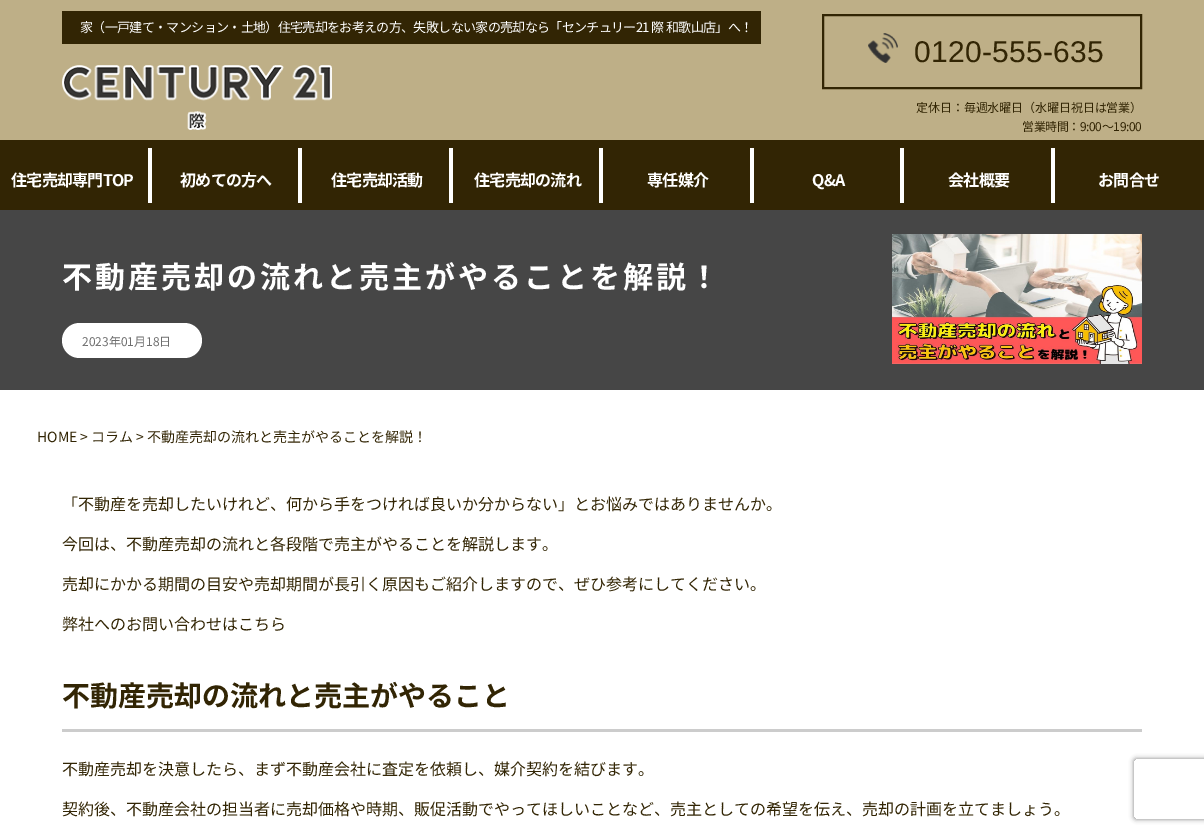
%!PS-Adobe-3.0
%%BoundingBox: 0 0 1204 833
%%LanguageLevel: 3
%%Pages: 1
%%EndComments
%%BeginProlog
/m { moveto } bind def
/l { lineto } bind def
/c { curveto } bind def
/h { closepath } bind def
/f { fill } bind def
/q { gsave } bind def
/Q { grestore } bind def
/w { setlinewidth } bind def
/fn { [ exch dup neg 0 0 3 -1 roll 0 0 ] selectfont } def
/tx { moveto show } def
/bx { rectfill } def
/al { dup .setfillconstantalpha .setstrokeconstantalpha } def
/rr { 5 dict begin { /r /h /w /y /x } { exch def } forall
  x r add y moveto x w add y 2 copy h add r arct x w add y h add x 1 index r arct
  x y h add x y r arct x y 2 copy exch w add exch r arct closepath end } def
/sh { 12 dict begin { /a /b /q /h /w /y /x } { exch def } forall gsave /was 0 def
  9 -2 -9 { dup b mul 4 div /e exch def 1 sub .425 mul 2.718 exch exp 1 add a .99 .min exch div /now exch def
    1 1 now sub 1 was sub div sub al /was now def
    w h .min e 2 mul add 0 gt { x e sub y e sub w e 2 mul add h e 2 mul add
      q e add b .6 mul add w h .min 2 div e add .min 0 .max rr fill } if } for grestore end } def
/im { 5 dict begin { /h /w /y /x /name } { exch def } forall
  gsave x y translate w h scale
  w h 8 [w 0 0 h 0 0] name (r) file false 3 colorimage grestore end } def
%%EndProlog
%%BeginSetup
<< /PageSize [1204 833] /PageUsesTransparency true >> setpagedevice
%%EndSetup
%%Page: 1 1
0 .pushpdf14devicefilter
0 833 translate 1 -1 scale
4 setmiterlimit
1 setgray
0 0 1204 833 bx
0.745 0.686 0.529 setrgbcolor
0 0 1204 140 bx
0.196 0.145 0.016 setrgbcolor
62 11 699 33 bx
/NotoSansJP-Regular 13 fn
1 setgray
80 32 m -0.65 0 (家（一戸建て・マンション・土地）住宅売却をお考えの方、失敗しない家の売却なら「センチュリー21 際 和歌山店」へ！) ashow
(image0.raw) 62 65 270 65 im
0.196 0.145 0.016 setrgbcolor
2 w
823 15 318 73 rectstroke
(image1.raw) 868 33 30 30 im
/LiberationSans-Regular 30 fn
914 62 m 0.25 0 (0120-555-635) ashow
/NotoSansJP-Regular 12 fn
916 112 m -0.1 0 (定休日：毎週水曜日（水曜日祝日は営業）) ashow
1022 131 m -0.4 0 (営業時間：9:00～19:00) ashow
0 140 1204 70 bx
/NotoSansJP-Bold 16 fn
1 setgray
11 186 m -0.75 0 (住宅売却専門TOP) ashow
148 148 4 55 bx
180 186 m -0.75 0 (初めての方へ) ashow
298 148 4 55 bx
331 186 m -0.75 0 (住宅売却活動) ashow
449 148 4 55 bx
474 186 m -0.75 0 (住宅売却の流れ) ashow
599 148 4 55 bx
647 186 m -0.75 0 (専任媒介) ashow
750 148 4 55 bx
812 186 m -0.75 0 (Q&A) ashow
900 148 4 55 bx
948 186 m -0.75 0 (会社概要) ashow
1051 148 4 55 bx
1098 186 m -0.75 0 (お問合せ) ashow
0.275 setgray
0 210 1204 180 bx
/NotoSansJP-Bold 30 fn
1 setgray
62 288 m 3 0 (不動産売却の流れと売主がやることを解説！) ashow
62 323 140 35 17.5 rr f
/NotoSansJP-Regular 12 fn
0.431 setgray
(2023年01月18日) 82 346 tx
(image2.raw) 892 234 250 130 im
/NotoSansJP-Regular 14 fn
0.196 0.145 0.016 setrgbcolor
(HOME > コラム > 不動産売却の流れと売主がやることを解説！) 37 442 tx
/NotoSansJP-Regular 16 fn
(「不動産を売却したいけれど、何から手をつければ良いか分からない」とお悩みではありませんか。) 62 510 tx
(今回は、不動産売却の流れと各段階で売主がやることを解説します。) 62 550 tx
(売却にかかる期間の目安や売却期間が長引く原因もご紹介しますので、ぜひ参考にしてください。) 62 590 tx
(弊社へのお問い合わせはこちら) 62 630 tx
0.8 setgray
62 729 1080 3 bx
/NotoSansJP-Bold 28 fn
0.196 0.145 0.016 setrgbcolor
(不動産売却の流れと売主がやること) 62 706 tx
/NotoSansJP-Regular 16 fn
(不動産売却を決意したら、まず不動産会社に査定を依頼し、媒介契約を結びます。) 62 775 tx
(契約後、不動産会社の担当者に売却価格や時期、販促活動でやってほしいことなど、売主としての希望を伝え、売却の計画を立てましょう。) 62 815 tx
q
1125 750 m 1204 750 l 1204 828 l 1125 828 l h 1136 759 m 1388 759 l 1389 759 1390 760 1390 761 c 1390 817 l 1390 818 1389 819 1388 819 c 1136 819 l 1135 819 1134 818 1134 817 c 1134 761 l 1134 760 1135 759 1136 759 c h eoclip newpath
0.502 setgray
1134 759 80 60 2 2.5 1 sh
Q
.poppdf14devicefilter showpage
%%EOF
